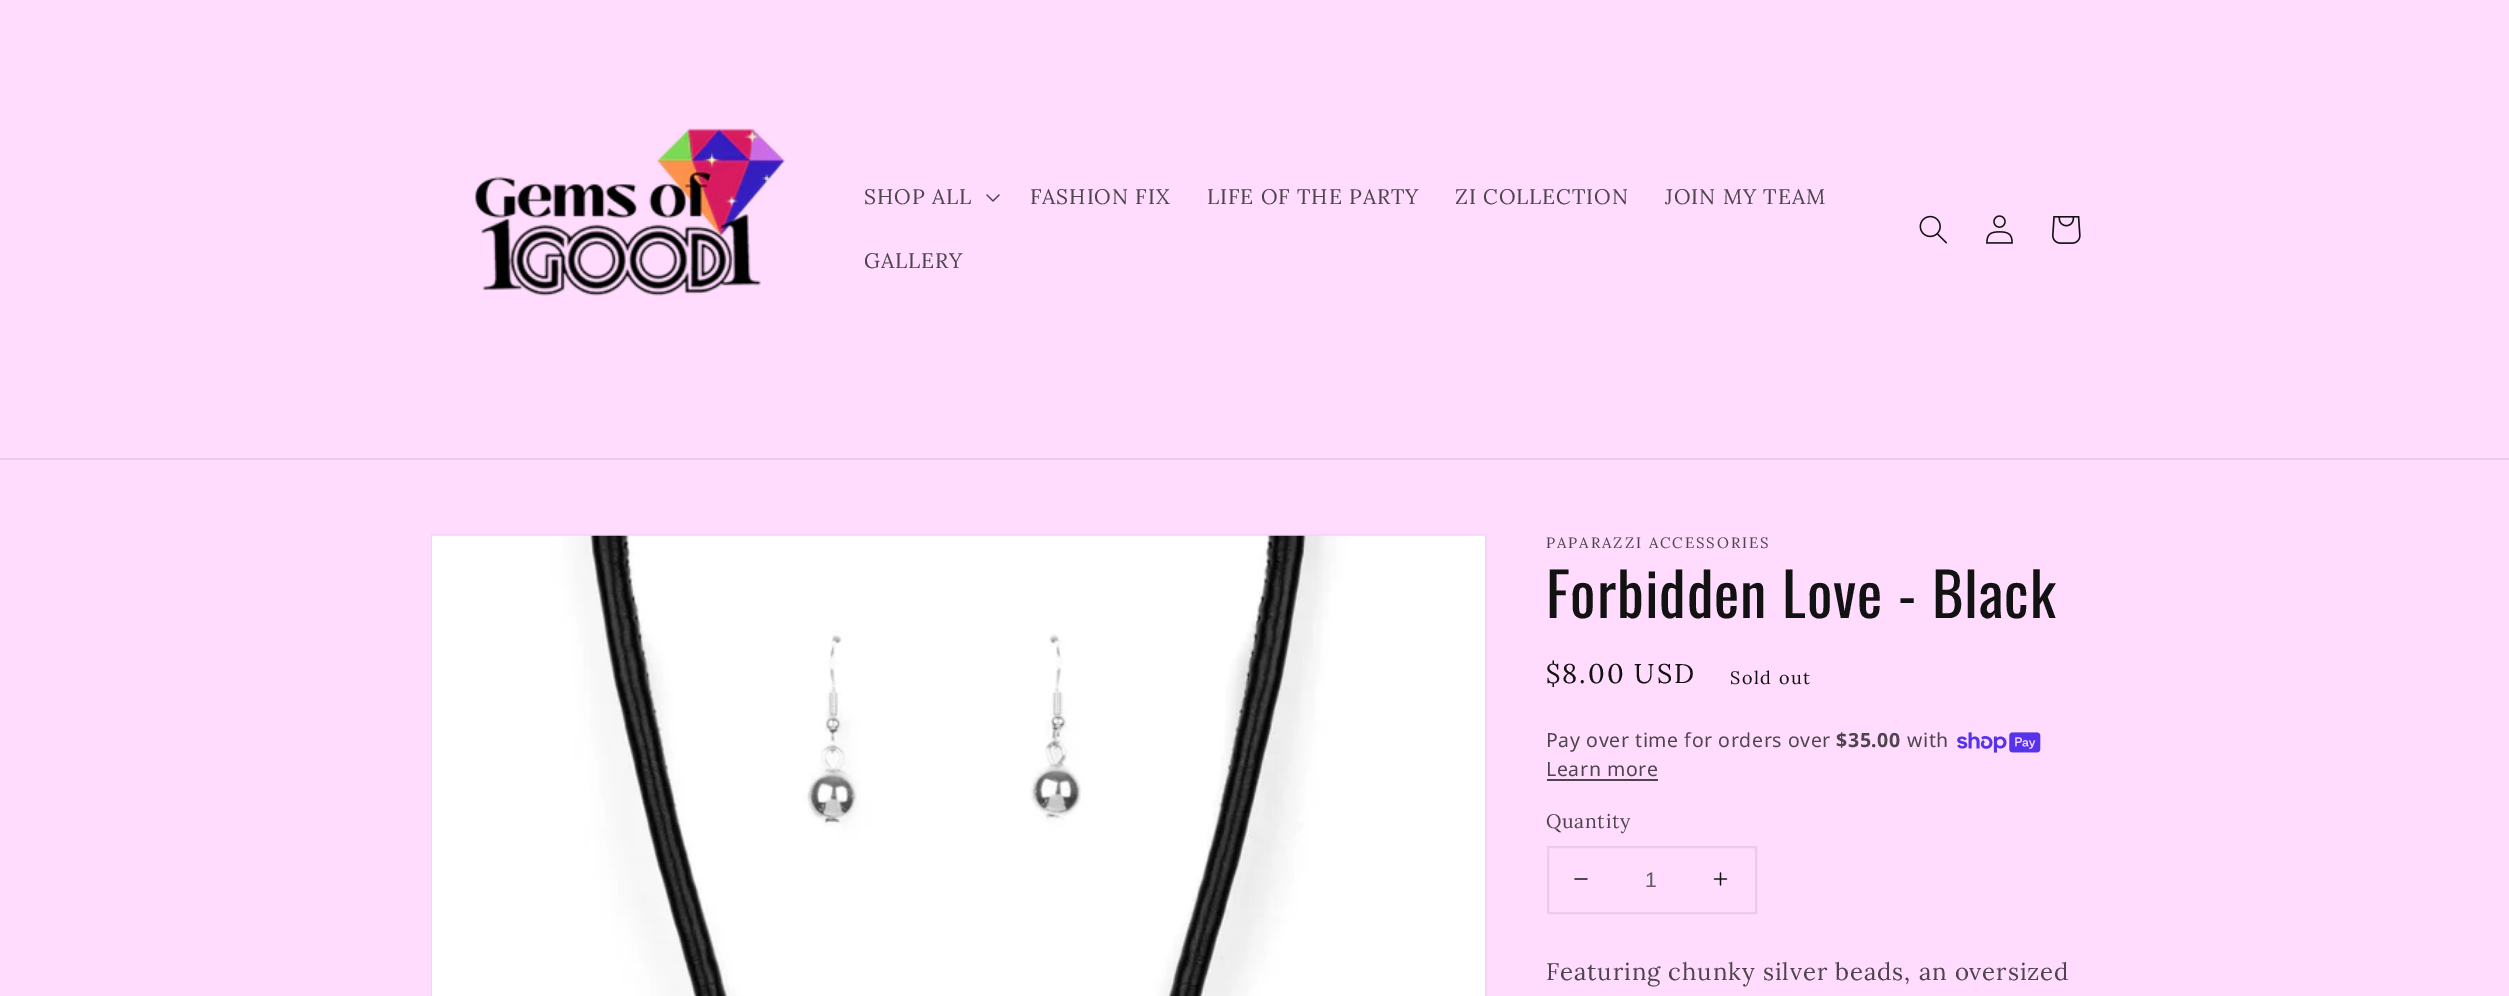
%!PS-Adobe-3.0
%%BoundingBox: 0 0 2509 996
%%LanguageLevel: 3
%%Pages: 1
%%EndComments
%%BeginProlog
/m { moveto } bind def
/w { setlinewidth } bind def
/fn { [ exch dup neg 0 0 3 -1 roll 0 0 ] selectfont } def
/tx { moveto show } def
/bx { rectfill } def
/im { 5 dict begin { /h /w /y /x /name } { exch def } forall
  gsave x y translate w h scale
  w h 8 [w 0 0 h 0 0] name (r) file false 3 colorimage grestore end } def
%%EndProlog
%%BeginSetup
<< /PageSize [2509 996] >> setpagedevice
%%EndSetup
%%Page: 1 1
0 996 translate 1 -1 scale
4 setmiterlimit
1 0.859 0.992 setrgbcolor
0 0 2509 996 bx
0.925 0.796 0.918 setrgbcolor
0 458 2509 2 bx
(image0.raw) 475 128 310 168 im
/Lora-Regular 21 fn
0.302 0.267 0.302 setrgbcolor
864 204 m 0.9 0 (SHOP ALL) ashow
(image1.raw) 986 194 14 8 im
1030 204 m 0.9 0 (FASHION FIX) ashow
1207 204 m 0.9 0 (LIFE OF THE PARTY) ashow
1455 204 m 0.9 0 (ZI COLLECTION) ashow
1665 204 m 0.9 0 (JOIN MY TEAM) ashow
864 268 m 0.9 0 (GALLERY) ashow
(image2.raw) 1919 215 28 29 im
(image3.raw) 1986 215 27 29 im
(image4.raw) 2052 216 29 28 im
0.965 0.827 0.957 setrgbcolor
2 w
432 535 1054 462 rectstroke
(image5.raw) 432 535 1053 461 im
/Lora-Regular 15 fn
0.302 0.267 0.302 setrgbcolor
1546 548 m 1.95 0 (PAPARAZZI ACCESSORIES) ashow
/Oswald-Regular 60 fn
0.071 setgray
1546 618 m 0.9 0 (Forbidden Love - Black) ashow
/Lora-Regular 27 fn
1546 683 m 1.95 0 ($8.00 USD) ashow
/Lora-Regular 18 fn
1730 684 m 1.5 0 (Sold out) ashow
/NotoSans-Regular 19.5 fn
0.302 0.267 0.302 setrgbcolor
1546 747 m 0.6 0 (Pay over time for orders over) ashow
/NotoSans-Bold 19.5 fn
1836 747 m 0.6 0 ($35.00) ashow
/NotoSans-Regular 19.5 fn
1907 747 m 0.6 0 (with) ashow
(image6.raw) 1957 732 84 21 im
1546 776 m 0.6 0 (Learn more) ashow
1547 779 111 2 bx
/Lora-Regular 19.5 fn
1546 828 m 0.6 0 (Quantity) ashow
0.925 0.796 0.918 setrgbcolor
1548 847 208 66 rectstroke
(image7.raw) 1574 878 14 2 im
/LiberationSans-Regular 21 fn
0.408 0.357 0.404 setrgbcolor
(1) 1645 887 tx
(image8.raw) 1713 872 15 14 im
/Lora-Regular 24 fn
0.302 0.267 0.302 setrgbcolor
1546 980 m 0.9 0 (Featuring chunky silver beads, an oversized) ashow
showpage
%%EOF
